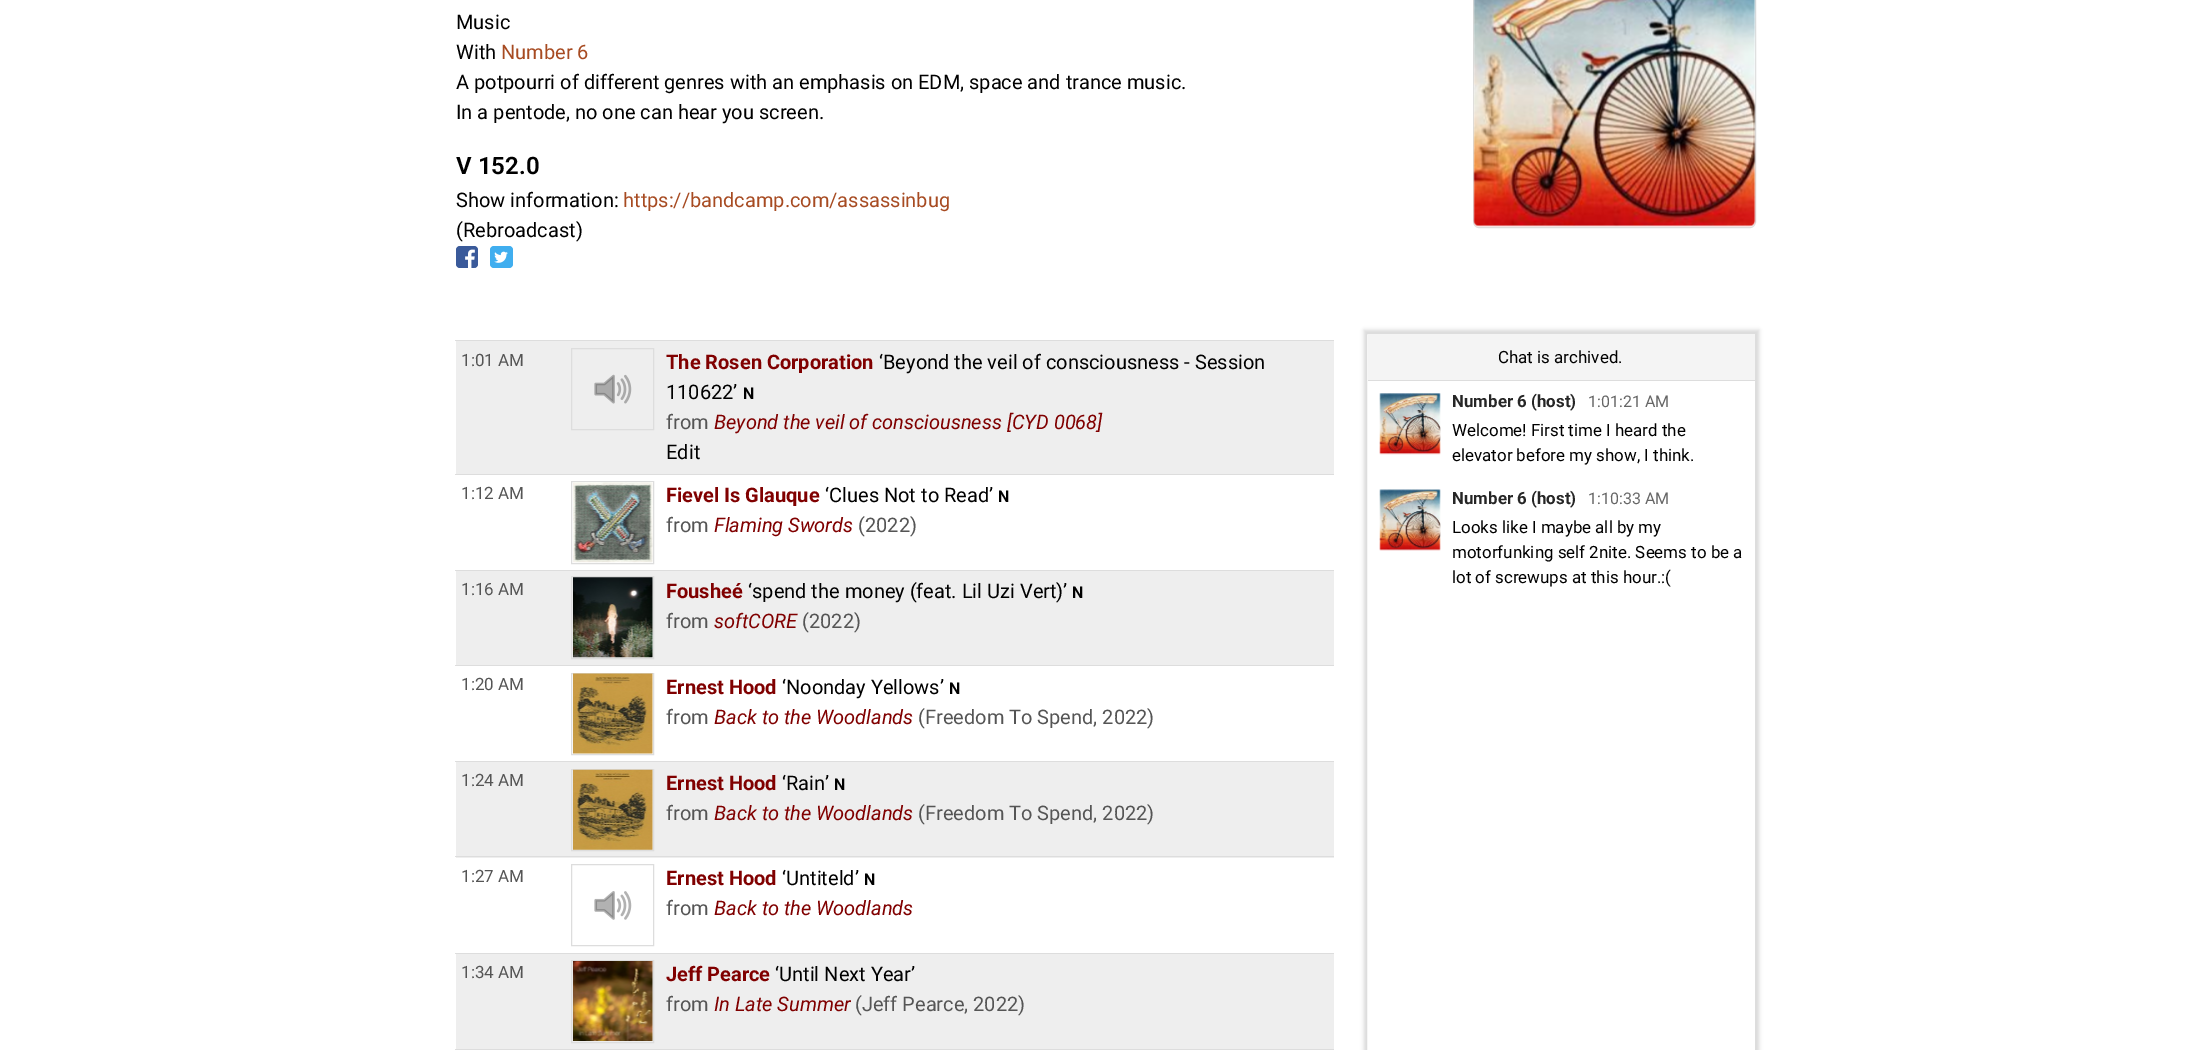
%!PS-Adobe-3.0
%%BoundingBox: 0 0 2211 1050
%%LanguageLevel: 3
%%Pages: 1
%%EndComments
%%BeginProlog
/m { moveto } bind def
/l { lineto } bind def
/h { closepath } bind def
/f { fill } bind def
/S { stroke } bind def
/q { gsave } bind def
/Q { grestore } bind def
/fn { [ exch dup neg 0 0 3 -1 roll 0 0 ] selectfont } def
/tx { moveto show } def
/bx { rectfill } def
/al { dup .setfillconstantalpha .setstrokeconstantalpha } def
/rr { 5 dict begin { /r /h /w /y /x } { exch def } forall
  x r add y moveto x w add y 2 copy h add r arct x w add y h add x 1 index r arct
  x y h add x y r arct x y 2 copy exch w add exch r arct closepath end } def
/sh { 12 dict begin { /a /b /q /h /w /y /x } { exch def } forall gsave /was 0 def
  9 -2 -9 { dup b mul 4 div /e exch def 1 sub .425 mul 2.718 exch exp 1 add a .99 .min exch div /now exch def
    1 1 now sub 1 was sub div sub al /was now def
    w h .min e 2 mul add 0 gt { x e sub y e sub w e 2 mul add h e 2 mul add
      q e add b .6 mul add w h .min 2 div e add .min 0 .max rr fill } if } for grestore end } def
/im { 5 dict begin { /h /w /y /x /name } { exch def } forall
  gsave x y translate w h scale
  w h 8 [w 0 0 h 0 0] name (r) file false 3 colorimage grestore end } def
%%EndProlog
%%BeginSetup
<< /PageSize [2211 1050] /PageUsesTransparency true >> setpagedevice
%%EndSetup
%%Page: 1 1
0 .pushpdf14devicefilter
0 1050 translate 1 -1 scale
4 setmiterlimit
1 setgray
0 0 2211 1050 bx
/Roboto-Regular 20 fn
0 setgray
(Music) 456 29 tx
(With) 456 59 tx
0.655 0.294 0.133 setrgbcolor
(Number 6) 501 59 tx
0 setgray
(A potpourri of different genres with an emphasis on EDM, space and trance music.) 456 89 tx
(In a pentode, no one can hear you screen.) 456 119 tx
/Roboto-SemiBold 24 fn
(V 152.0) 456 174 tx
/Roboto-Regular 20 fn
(Show information:) 456 207 tx
0.655 0.294 0.133 setrgbcolor
(https://bandcamp.com/assassinbug) 623 207 tx
0 setgray
(\(Rebroadcast\)) 456 237 tx
0.227 0.353 0.604 setrgbcolor
456 246 22 22 4 rr f
(image0.raw) 465 249 10 19 im
0.251 0.682 0.937 setrgbcolor
490 246 23 22 4 rr f
(image1.raw) 494 251 14 12 im
0.867 setgray
1473.5 -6.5 282 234 5.5 rr S
(image2.raw) 1473 0 283 227 im
0.933 setgray
456 341 878 133 bx
/Roboto-Regular 17 fn
0.333 setgray
(1:01 AM) 461 366 tx
0.867 setgray
571.5 348.5 82 81 rectstroke
(image3.raw) 594 374 38 30 im
455 340 879 1 bx
/Roboto-Bold 20 fn
0.502 0 0 setrgbcolor
(The Rosen Corporation) 666 369 tx
/Roboto-Regular 20 fn
0 setgray
(‘Beyond the veil of consciousness - Session) 879 369 tx
(110622’) 666 399 tx
/Roboto-Bold 16 fn
(N) 743 399 tx
/Roboto-Regular 20 fn
0.333 setgray
(from) 666 429 tx
/Roboto-Italic 20 fn
0.502 0 0 setrgbcolor
(Beyond the veil of consciousness [CYD 0068]) 714 429 tx
/Roboto-Regular 20 fn
0 setgray
(Edit) 666 459 tx
/Roboto-Regular 17 fn
0.333 setgray
(1:12 AM) 461 499 tx
0.867 setgray
571.5 481.5 82 82 rectstroke
(image4.raw) 573 482 80 81 im
455 474 879 1 bx
/Roboto-Bold 20 fn
0.502 0 0 setrgbcolor
(Fievel Is Glauque) 666 502 tx
/Roboto-Regular 20 fn
0 setgray
(‘Clues Not to Read’) 825 502 tx
/Roboto-Bold 16 fn
(N) 998 502 tx
/Roboto-Regular 20 fn
0.333 setgray
(from) 666 532 tx
/Roboto-Italic 20 fn
0.502 0 0 setrgbcolor
(Flaming Swords) 714 532 tx
/Roboto-Regular 20 fn
0.333 setgray
(\(2022\)) 858 532 tx
0.933 setgray
456 571 878 94 bx
/Roboto-Regular 17 fn
0.333 setgray
(1:16 AM) 461 595 tx
0.867 setgray
571.5 576.5 82 82 rectstroke
(image5.raw) 573 577 80 81 im
455 570 879 1 bx
/Roboto-Bold 20 fn
0.502 0 0 setrgbcolor
(Fousheé) 666 598 tx
/Roboto-Regular 20 fn
0 setgray
(‘spend the money \(feat. Lil Uzi Vert\)’) 748 598 tx
/Roboto-Bold 16 fn
(N) 1072 598 tx
/Roboto-Regular 20 fn
0.333 setgray
(from) 666 628 tx
/Roboto-Italic 20 fn
0.502 0 0 setrgbcolor
(softCORE) 714 628 tx
/Roboto-Regular 20 fn
0.333 setgray
(\(2022\)) 802 628 tx
/Roboto-Regular 17 fn
(1:20 AM) 461 690 tx
0.867 setgray
571.5 673.5 82 81 rectstroke
(image6.raw) 573 673 80 81 im
455 665 879 1 bx
/Roboto-Bold 20 fn
0.502 0 0 setrgbcolor
(Ernest Hood) 666 694 tx
/Roboto-Regular 20 fn
0 setgray
(‘Noonday Yellows’) 782 694 tx
/Roboto-Bold 16 fn
(N) 949 694 tx
/Roboto-Regular 20 fn
0.333 setgray
(from) 666 724 tx
/Roboto-Italic 20 fn
0.502 0 0 setrgbcolor
(Back to the Woodlands) 714 724 tx
/Roboto-Regular 20 fn
0.333 setgray
(\(Freedom To Spend, 2022\)) 918 724 tx
0.933 setgray
456 762 878 96 bx
/Roboto-Regular 17 fn
0.333 setgray
(1:24 AM) 461 786 tx
0.867 setgray
571.5 769.5 82 81 rectstroke
(image7.raw) 573 769 80 81 im
455 761 879 1 bx
/Roboto-Bold 20 fn
0.502 0 0 setrgbcolor
(Ernest Hood) 666 790 tx
/Roboto-Regular 20 fn
0 setgray
(‘Rain’) 782 790 tx
/Roboto-Bold 16 fn
(N) 834 790 tx
/Roboto-Regular 20 fn
0.333 setgray
(from) 666 820 tx
/Roboto-Italic 20 fn
0.502 0 0 setrgbcolor
(Back to the Woodlands) 714 820 tx
/Roboto-Regular 20 fn
0.333 setgray
(\(Freedom To Spend, 2022\)) 918 820 tx
/Roboto-Regular 17 fn
(1:27 AM) 461 882 tx
0.867 setgray
571.5 864.5 82 81 rectstroke
(image8.raw) 594 891 38 29 im
455 856 879 1 bx
/Roboto-Bold 20 fn
0.502 0 0 setrgbcolor
(Ernest Hood) 666 885 tx
/Roboto-Regular 20 fn
0 setgray
(‘Untiteld’) 782 885 tx
/Roboto-Bold 16 fn
(N) 864 885 tx
/Roboto-Regular 20 fn
0.333 setgray
(from) 666 915 tx
/Roboto-Italic 20 fn
0.502 0 0 setrgbcolor
(Back to the Woodlands) 714 915 tx
0.933 setgray
456 954 878 95 bx
/Roboto-Regular 17 fn
0.333 setgray
(1:34 AM) 461 978 tx
0.867 setgray
571.5 960.5 82 82 rectstroke
(image9.raw) 573 961 80 80 im
455 953 879 1 bx
/Roboto-Bold 20 fn
0.502 0 0 setrgbcolor
(Jeff Pearce) 666 981 tx
/Roboto-Regular 20 fn
0 setgray
(‘Until Next Year’) 775 981 tx
0.333 setgray
(from) 666 1011 tx
/Roboto-Italic 20 fn
0.502 0 0 setrgbcolor
(In Late Summer) 714 1011 tx
/Roboto-Regular 20 fn
0.333 setgray
(\(Jeff Pearce, 2022\)) 855 1011 tx
0.867 setgray
455 1049 879 1 bx
0 setgray
1364 330 395 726 0 2 0.15 sh
1 setgray
1366.5 333.5 m 1755.5 333.5 l 1755.5 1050.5 l 1366.5 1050.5 l h q f Q
0.867 setgray
S
0.957 setgray
1368 334 387 46 bx
0.867 setgray
1368 380 387 1 bx
/Roboto-Regular 16.9 fn
0 setgray
(Chat is archived.) 1498 363 tx
(image10.raw) 1379 393 62 62 im
/Roboto-Bold 16.9 fn
0.149 setgray
(Number 6 \(host\)) 1452 407 tx
/Roboto-Regular 16 fn
0.4 setgray
(1:01:21 AM) 1588 407 tx
/Roboto-Regular 16.9 fn
0 setgray
(Welcome! First time I heard the) 1452 436 tx
(elevator before my show, I think.) 1452 461 tx
(image11.raw) 1379 489 62 62 im
/Roboto-Bold 16.9 fn
0.149 setgray
(Number 6 \(host\)) 1452 504 tx
/Roboto-Regular 16 fn
0.4 setgray
(1:10:33 AM) 1588 504 tx
/Roboto-Regular 16.9 fn
0 setgray
(Looks like I maybe all by my) 1452 533 tx
(motorfunking self 2nite. Seems to be a) 1452 558 tx
(lot of screwups at this hour.:\() 1452 583 tx
.poppdf14devicefilter showpage
%%EOF
